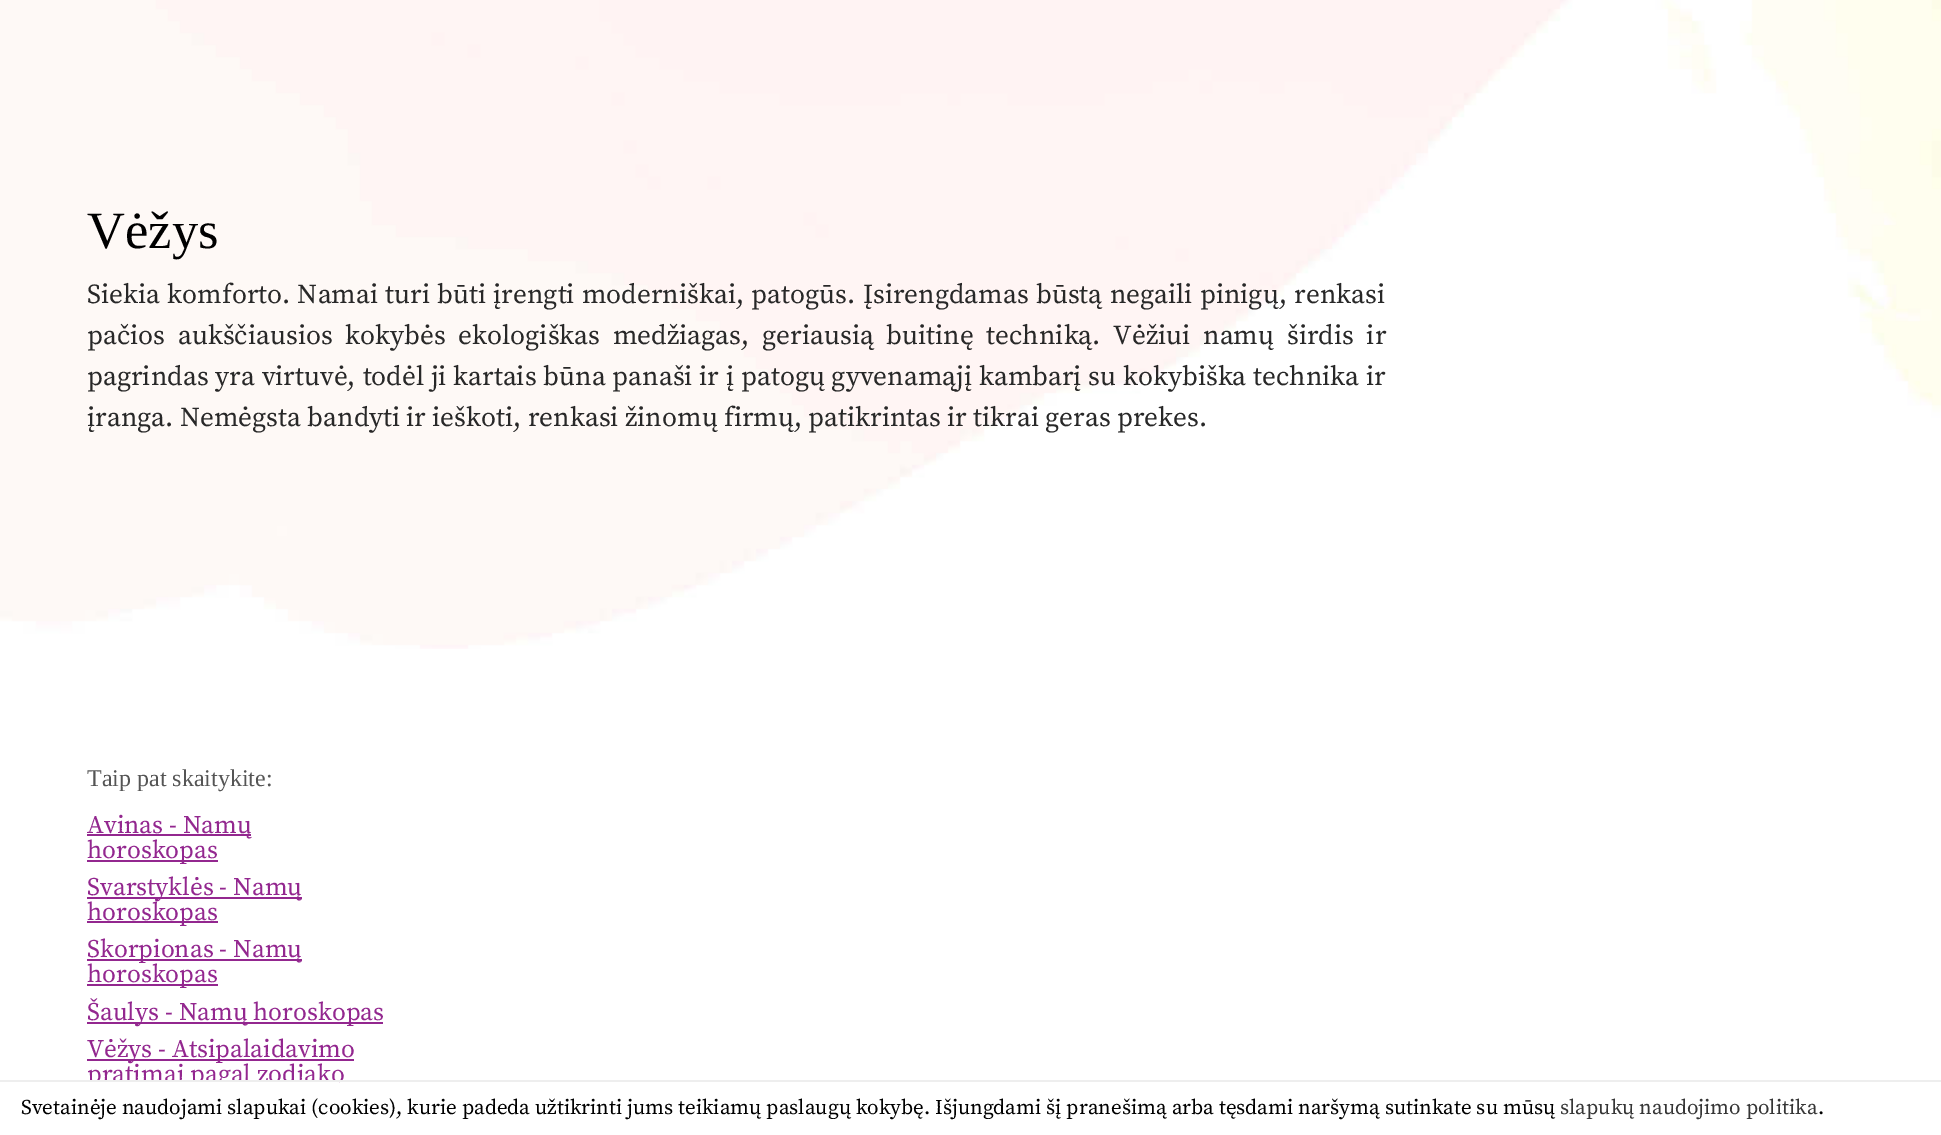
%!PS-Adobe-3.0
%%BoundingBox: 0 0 1941 1135
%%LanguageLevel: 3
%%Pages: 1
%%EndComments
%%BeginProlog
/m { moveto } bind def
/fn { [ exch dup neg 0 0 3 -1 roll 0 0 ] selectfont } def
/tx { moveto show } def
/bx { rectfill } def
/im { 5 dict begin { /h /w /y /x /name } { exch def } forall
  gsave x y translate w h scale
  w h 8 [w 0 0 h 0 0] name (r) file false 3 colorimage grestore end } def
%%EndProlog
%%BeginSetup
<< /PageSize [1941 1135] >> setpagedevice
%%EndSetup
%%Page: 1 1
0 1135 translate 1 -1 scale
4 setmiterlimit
1 setgray
0 0 1941 1135 bx
(image0.raw) 0 0 1941 649 im
/LiberationSerif-Regular 52.5 fn
0 setgray
(Vėžys) 87 248 tx
/SourceSerifPro-Regular 27.3 fn
0.157 setgray
87 303 m 1 0 32 (Siekia komforto. Namai turi būti įrengti moderniškai, patogūs. Įsirengdamas būstą negaili pinigų, renkasi) widthshow
87 344 m 6.4 0 32 (pačios aukščiausios kokybės ekologiškas medžiagas, geriausią buitinę techniką. Vėžiui namų širdis ir) widthshow
87 385 m 0.5 0 32 (pagrindas yra virtuvė, todėl ji kartais būna panaši ir į patogų gyvenamąjį kambarį su kokybiška technika ir) widthshow
(įranga. Nemėgsta bandyti ir ieškoti, renkasi žinomų firmų, patikrintas ir tikrai geras prekes.) 87 426 tx
/LiberationSerif-Regular 24 fn
0.333 setgray
(Taip pat skaitykite:) 87 786 tx
0.576 0.153 0.561 setrgbcolor
87 834 164 2 bx
/SourceSerifPro-Regular 25.25 fn
(Avinas - Namų) 87 833 tx
87 860 131 2 bx
(horoskopas) 87 858 tx
87 897 215 2 bx
(Svarstyklės - Namų) 87 895 tx
87 921 131 2 bx
(horoskopas) 87 920 tx
87 959 215 2 bx
(Skorpionas - Namų) 87 957 tx
87 984 131 2 bx
(horoskopas) 87 982 tx
87 1022 296 2 bx
(Šaulys - Namų horoskopas) 87 1020 tx
87 1059 267 2 bx
(Vėžys - Atsipalaidavimo) 87 1057 tx
(pratimai pagal zodiako) 87 1082 tx
1 setgray
87 1082 252 6 bx
0.933 setgray
0 1080 1941 2 bx
/SourceSerifPro-Regular 21 fn
0 setgray
(Svetainėje naudojami slapukai \(cookies\), kurie padeda užtikrinti jums teikiamų paslaugų kokybę. Išjungdami šį pranešimą arba tęsdami naršymą sutinkate su mūsų) 21 1114 tx
0.212 setgray
(slapukų naudojimo politika) 1560 1114 tx
0 setgray
(.) 1818 1114 tx
showpage
%%EOF
